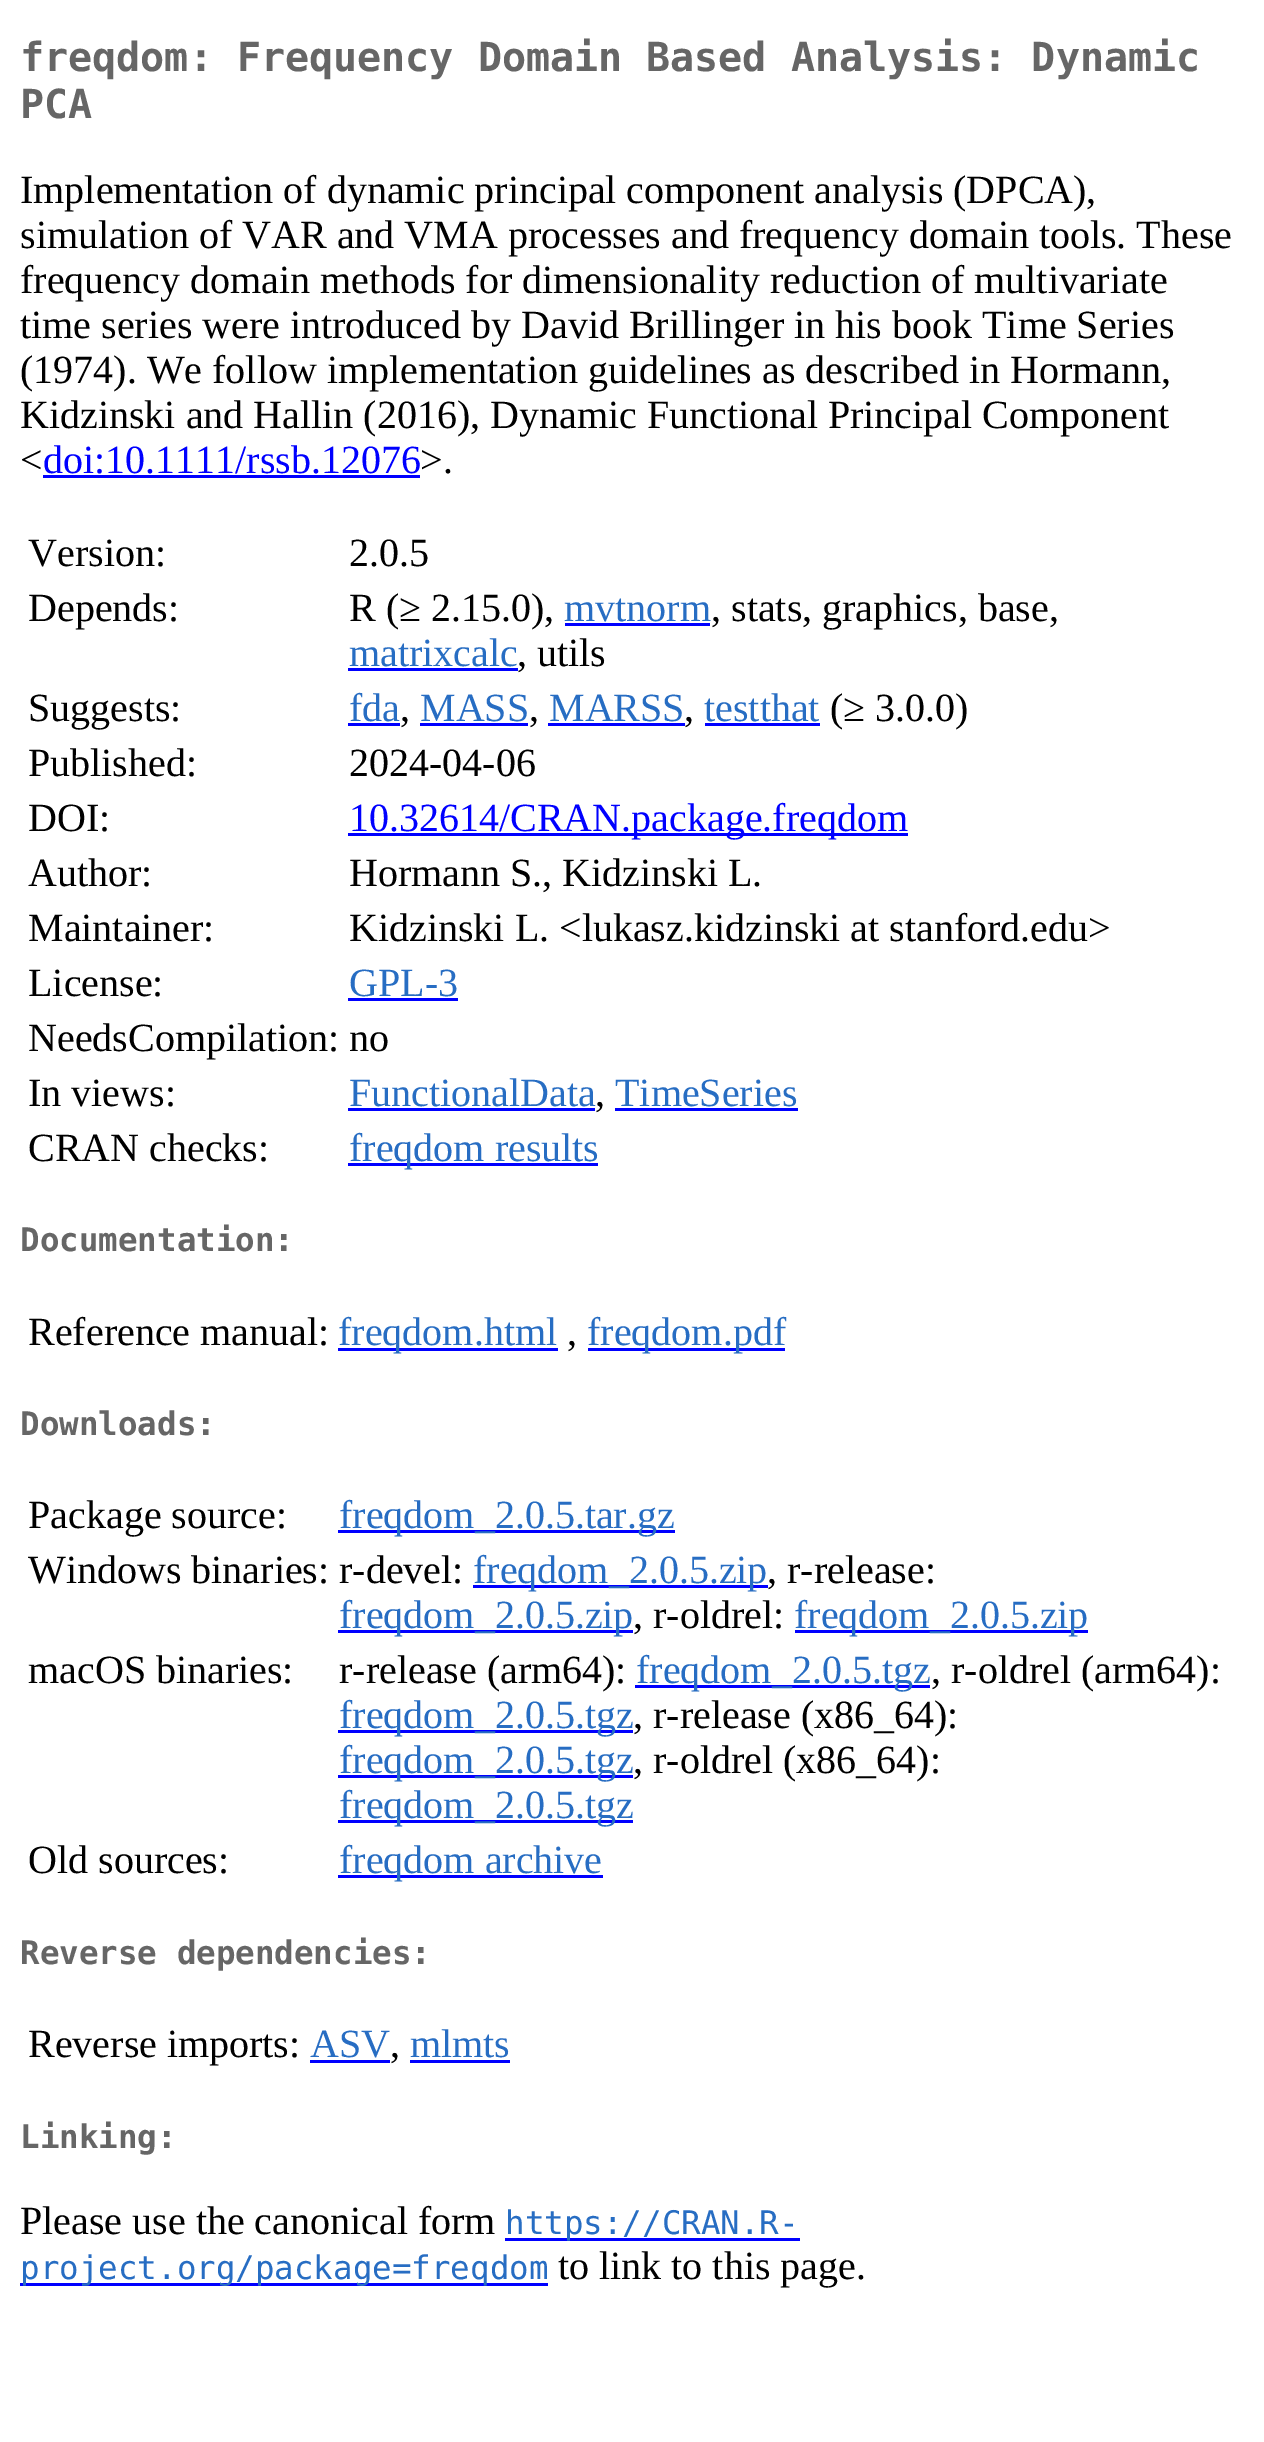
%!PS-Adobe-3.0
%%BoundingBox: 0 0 1264 2442
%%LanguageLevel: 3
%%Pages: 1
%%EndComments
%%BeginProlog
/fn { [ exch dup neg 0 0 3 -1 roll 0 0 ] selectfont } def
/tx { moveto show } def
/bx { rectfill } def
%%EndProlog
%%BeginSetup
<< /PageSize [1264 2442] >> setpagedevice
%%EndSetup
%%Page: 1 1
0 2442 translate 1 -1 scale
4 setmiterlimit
1 setgray
0 0 1264 2442 bx
/DejaVuSansMono-Bold 40 fn
0.4 setgray
(freqdom: Frequency Domain Based Analysis: Dynamic) 20 71 tx
(PCA) 20 118 tx
/LiberationSerif-Regular 40 fn
0 setgray
(Implementation of dynamic principal component analysis \(DPCA\),) 20 203 tx
(simulation of VAR and VMA processes and frequency domain tools. These) 20 248 tx
(frequency domain methods for dimensionality reduction of multivariate) 20 293 tx
(time series were introduced by David Brillinger in his book Time Series) 20 338 tx
(\(1974\). We follow implementation guidelines as described in Hormann,) 20 383 tx
(Kidzinski and Hallin \(2016\), Dynamic Functional Principal Component) 20 428 tx
(<) 20 473 tx
0 0 1 setrgbcolor
(doi:10.1111/rssb.12076) 43 473 tx
43 475 377 3 bx
0 setgray
(>.) 420 473 tx
(Version:) 28 566 tx
(2.0.5) 349 566 tx
(Depends:) 28 621 tx
(R \(≥ 2.15.0\),) 349 621 tx
0.153 0.427 0.765 setrgbcolor
(mvtnorm) 564 621 tx
0 0 1 setrgbcolor
565 623 145 3 bx
0 setgray
(, stats, graphics, base,) 711 621 tx
0.153 0.427 0.765 setrgbcolor
(matrixcalc) 349 666 tx
0 0 1 setrgbcolor
348 668 170 3 bx
0 setgray
(, utils) 517 666 tx
(Suggests:) 28 721 tx
0.153 0.427 0.765 setrgbcolor
(fda) 349 721 tx
0 0 1 setrgbcolor
348 723 52 3 bx
0 setgray
(,) 400 721 tx
0.153 0.427 0.765 setrgbcolor
(MASS) 420 721 tx
0 0 1 setrgbcolor
420 723 108 3 bx
0 setgray
(,) 529 721 tx
0.153 0.427 0.765 setrgbcolor
(MARSS) 549 721 tx
0 0 1 setrgbcolor
548 723 137 3 bx
0 setgray
(,) 684 721 tx
0.153 0.427 0.765 setrgbcolor
(testthat) 704 721 tx
0 0 1 setrgbcolor
705 723 115 3 bx
0 setgray
(\(≥ 3.0.0\)) 830 721 tx
(Published:) 28 776 tx
(2024-04-06) 349 776 tx
(DOI:) 28 831 tx
0 0 1 setrgbcolor
348 833 560 3 bx
(10.32614/CRAN.package.freqdom) 349 831 tx
0 setgray
(Author:) 28 886 tx
(Hormann S., Kidzinski L.) 349 886 tx
(Maintainer:) 28 941 tx
(Kidzinski L. <lukasz.kidzinski at stanford.edu>) 349 941 tx
(License:) 28 996 tx
0.153 0.427 0.765 setrgbcolor
(GPL-3) 349 996 tx
0 0 1 setrgbcolor
348 998 110 3 bx
0 setgray
(NeedsCompilation: no) 28 1051 tx
(In views:) 28 1106 tx
0.153 0.427 0.765 setrgbcolor
(FunctionalData) 349 1106 tx
0 0 1 setrgbcolor
348 1108 247 3 bx
0 setgray
(,) 595 1106 tx
0.153 0.427 0.765 setrgbcolor
(TimeSeries) 615 1106 tx
0 0 1 setrgbcolor
615 1108 183 3 bx
0 setgray
(CRAN checks:) 28 1161 tx
0 0 1 setrgbcolor
348 1163 250 3 bx
0.153 0.427 0.765 setrgbcolor
(freqdom results) 349 1161 tx
/DejaVuSansMono-Bold 32.5 fn
0.4 setgray
(Documentation:) 20 1251 tx
/LiberationSerif-Regular 40 fn
0 setgray
(Reference manual:) 28 1345 tx
0 0 1 setrgbcolor
338 1348 220 3 bx
0.153 0.427 0.765 setrgbcolor
(freqdom.html) 338 1345 tx
0 setgray
(,) 567 1345 tx
0 0 1 setrgbcolor
588 1348 197 3 bx
0.153 0.427 0.765 setrgbcolor
(freqdom.pdf) 587 1345 tx
/DejaVuSansMono-Bold 32.5 fn
0.4 setgray
(Downloads:) 20 1435 tx
/LiberationSerif-Regular 40 fn
0 setgray
(Package source:) 28 1528 tx
0 0 1 setrgbcolor
338 1530 337 3 bx
0.153 0.427 0.765 setrgbcolor
(freqdom_2.0.5.tar.gz) 339 1528 tx
0 setgray
(Windows binaries: r-devel:) 28 1583 tx
0 0 1 setrgbcolor
473 1585 295 3 bx
0.153 0.427 0.765 setrgbcolor
(freqdom_2.0.5.zip) 473 1583 tx
0 setgray
(, r-release:) 767 1583 tx
0 0 1 setrgbcolor
338 1630 295 3 bx
0.153 0.427 0.765 setrgbcolor
(freqdom_2.0.5.zip) 339 1628 tx
0 setgray
(, r-oldrel:) 633 1628 tx
0 0 1 setrgbcolor
795 1630 293 3 bx
0.153 0.427 0.765 setrgbcolor
(freqdom_2.0.5.zip) 794 1628 tx
0 setgray
(macOS binaries:) 28 1683 tx
(r-release \(arm64\):) 339 1683 tx
0 0 1 setrgbcolor
635 1685 295 3 bx
0.153 0.427 0.765 setrgbcolor
(freqdom_2.0.5.tgz) 636 1683 tx
0 setgray
(, r-oldrel \(arm64\):) 931 1683 tx
0 0 1 setrgbcolor
338 1730 295 3 bx
0.153 0.427 0.765 setrgbcolor
(freqdom_2.0.5.tgz) 339 1728 tx
0 setgray
(, r-release \(x86_64\):) 633 1728 tx
0 0 1 setrgbcolor
338 1775 295 3 bx
0.153 0.427 0.765 setrgbcolor
(freqdom_2.0.5.tgz) 339 1773 tx
0 setgray
(, r-oldrel \(x86_64\):) 633 1773 tx
0 0 1 setrgbcolor
338 1820 295 3 bx
0.153 0.427 0.765 setrgbcolor
(freqdom_2.0.5.tgz) 339 1818 tx
0 setgray
(Old sources:) 28 1873 tx
0 0 1 setrgbcolor
338 1875 265 3 bx
0.153 0.427 0.765 setrgbcolor
(freqdom archive) 339 1873 tx
/DejaVuSansMono-Bold 32.5 fn
0.4 setgray
(Reverse dependencies:) 20 1964 tx
/LiberationSerif-Regular 40 fn
0 setgray
(Reverse imports:) 28 2057 tx
0.153 0.427 0.765 setrgbcolor
(ASV) 310 2057 tx
0 0 1 setrgbcolor
310 2060 80 3 bx
0 setgray
(,) 390 2057 tx
0.153 0.427 0.765 setrgbcolor
(mlmts) 410 2057 tx
0 0 1 setrgbcolor
410 2060 100 3 bx
/DejaVuSansMono-Bold 32.5 fn
0.4 setgray
(Linking:) 20 2148 tx
/LiberationSerif-Regular 40 fn
0 setgray
(Please use the canonical form) 20 2234 tx
0 0 1 setrgbcolor
505 2238 295 3 bx
/DejaVuSansMono-Regular 32.5 fn
0.153 0.427 0.765 setrgbcolor
(https://CRAN.R-) 505 2234 tx
0 0 1 setrgbcolor
20 2283 528 3 bx
0.153 0.427 0.765 setrgbcolor
(project.org/package=freqdom) 20 2279 tx
/LiberationSerif-Regular 40 fn
0 setgray
(to link to this page.) 558 2279 tx
showpage
%%EOF
